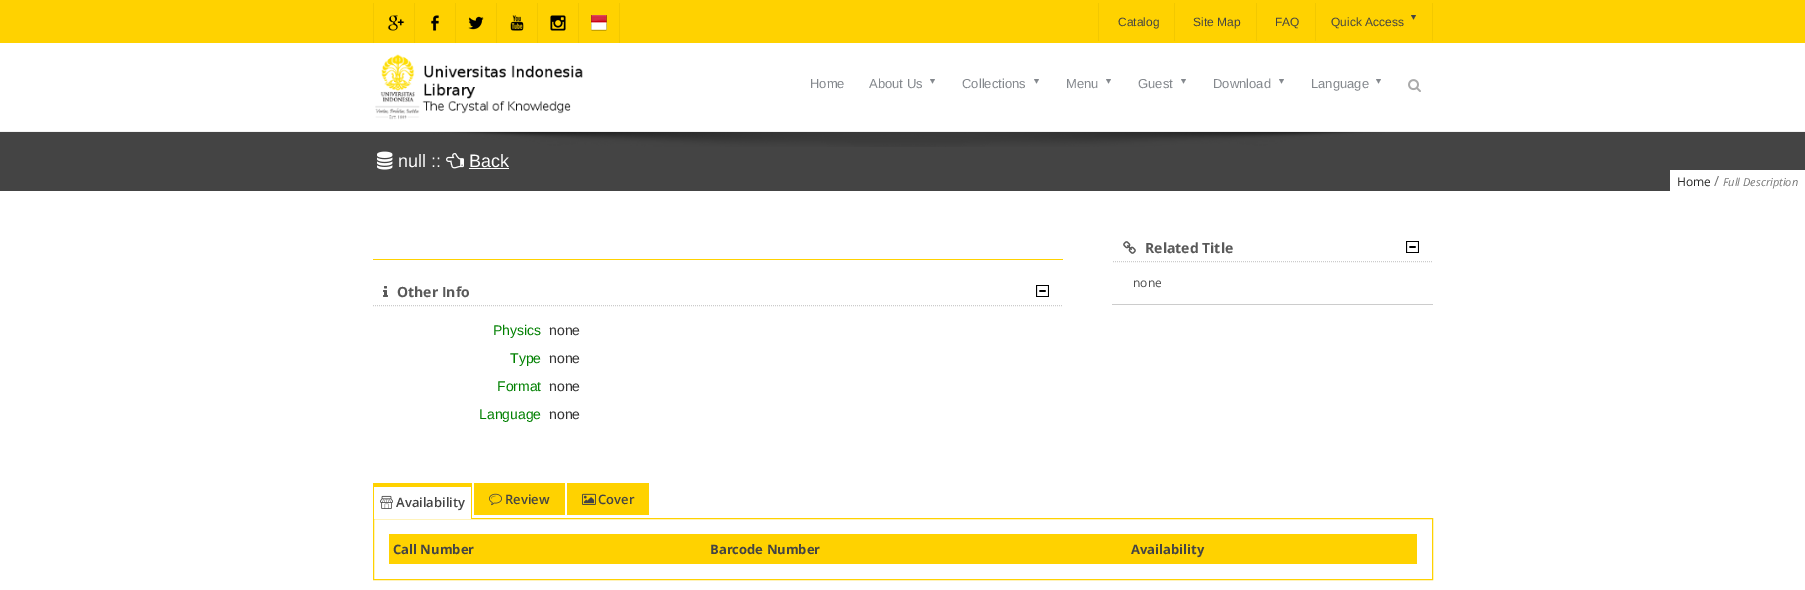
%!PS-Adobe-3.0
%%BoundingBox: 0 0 1805 590
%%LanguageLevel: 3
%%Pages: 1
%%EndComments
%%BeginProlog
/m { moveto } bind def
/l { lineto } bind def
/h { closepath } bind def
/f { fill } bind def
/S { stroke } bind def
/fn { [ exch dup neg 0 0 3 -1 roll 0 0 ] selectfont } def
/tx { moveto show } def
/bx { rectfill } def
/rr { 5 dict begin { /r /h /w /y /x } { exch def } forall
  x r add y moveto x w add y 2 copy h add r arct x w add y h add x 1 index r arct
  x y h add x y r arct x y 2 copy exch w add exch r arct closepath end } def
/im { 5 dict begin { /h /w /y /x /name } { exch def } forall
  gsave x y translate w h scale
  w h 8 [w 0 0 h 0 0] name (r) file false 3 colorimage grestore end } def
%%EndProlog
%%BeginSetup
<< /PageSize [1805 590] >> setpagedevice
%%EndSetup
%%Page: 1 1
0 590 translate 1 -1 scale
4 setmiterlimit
1 setgray
0 0 1805 590 bx
1 0.824 0 setrgbcolor
0 0 1805 43 bx
0.949 0.784 0 setrgbcolor
373 3 1 40 bx
414 3 1 40 bx
(image0.raw) 387 15 18 16 im
455 3 1 40 bx
(image1.raw) 431 15 8 16 im
496 3 1 40 bx
(image2.raw) 468 16 16 14 im
537 3 1 40 bx
(image3.raw) 510 15 14 16 im
578 3 1 40 bx
(image4.raw) 550 15 16 16 im
619 3 1 40 bx
(image5.raw) 591 15 16 16 im
1098 3 1 38 bx
/LiberationSans-Regular 12 fn
0.267 setgray
(Catalog) 1118 26 tx
0.949 0.784 0 setrgbcolor
1174 3 1 38 bx
0.267 setgray
(Site Map) 1193 26 tx
0.949 0.784 0 setrgbcolor
1256 3 1 38 bx
0.267 setgray
(FAQ) 1275 26 tx
0.949 0.784 0 setrgbcolor
1432 3 1 38 bx
1315 3 1 38 bx
0.267 setgray
(Quick Access) 1331 26 tx
1416 15 m 1413.5 19.5 l 1411 15 l h f
0.949 setgray
0 131 1805 1 bx
(image6.raw) 375 54 208 66 im
/LiberationSans-Regular 13 fn
0.518 0.533 0.553 setrgbcolor
(Home) 810 88 tx
(About Us) 869 88 tx
935 79 m 932.5 83.5 l 930 79 l h f
(Collections) 962 88 tx
1039 79 m 1036.5 83.5 l 1034 79 l h f
(Menu) 1066 88 tx
1111 79 m 1108.5 83.5 l 1106 79 l h f
(Guest) 1138 88 tx
1186 79 m 1183.5 83.5 l 1181 79 l h f
(Download) 1213 88 tx
1284 79 m 1281.5 83.5 l 1279 79 l h f
(Language) 1311 88 tx
1381 79 m 1378.5 83.5 l 1376 79 l h f
(image7.raw) 1408 79 13 13 im
0.267 setgray
0 132 1805 59 bx
(image8.raw) 430 132 955 15 im
(image9.raw) 377 151 16 19 im
/LiberationSans-Regular 18 fn
1 setgray
(null ::) 398 167 tx
(image10.raw) 446 153 18 16 im
(Back) 469 167 tx
469 168 40 1 bx
1670 170 135 21 bx
/OpenSans-Regular 12 fn
0.161 0.161 0.157 setrgbcolor
(Home) 1677 186 tx
/OpenSans-Regular 14 fn
0.459 setgray
(/) 1714 186 tx
/OpenSans-Italic 11 fn
(Full Description) 1723 186 tx
0.8 setgray
[1 1] 0 setdash
1113 261.5 m 1433 261.5 l S
(image11.raw) 1123 241 13 13 im
/OpenSans-Bold 14 fn
0.349 setgray
(Related Title) 1145 253 tx
(image12.raw) 1406 241 13 12 im
0.8 setgray
1112 304 321 1 bx
/OpenSans-Regular 12 fn
0.302 setgray
(none) 1133 287 tx
1 0.824 0 setrgbcolor
373 259 690 1 0.5 rr f
0.8 setgray
373 305.5 m 1063 305.5 l S
(image13.raw) 383 286 5 11 im
/OpenSans-Bold 14 fn
0.349 setgray
(Other Info) 397 297 tx
(image12.raw) 1036 285 13 12 im
/LiberationSans-Regular 14 fn
0 0.502 0 setrgbcolor
(Physics) 493 335 tx
0.2 setgray
(none) 549 335 tx
0 0.502 0 setrgbcolor
(Type) 510 363 tx
0.2 setgray
(none) 549 363 tx
0 0.502 0 setrgbcolor
(Format) 497 391 tx
0.2 setgray
(none) 549 391 tx
0 0.502 0 setrgbcolor
(Language) 479 419 tx
0.2 setgray
(none) 549 419 tx
1 0.824 0 setrgbcolor
[] 0 setdash
373.5 518.5 1059 61 rectstroke
1 setgray
374 518 97 1 bx
1 0.824 0 setrgbcolor
373 483 99 4 bx
471 483 1 36 bx
373 483 1 36 bx
(image14.raw) 380 495 13 14 im
/OpenSans-SemiBold 13 fn
0.267 setgray
(Availability) 396 507 tx
1 0.824 0 setrgbcolor
474 483 91 32 bx
(image15.raw) 489 493 13 13 im
0.267 setgray
(Review) 505 504 tx
1 0.824 0 setrgbcolor
567 483 82 32 bx
(image16.raw) 582 493 14 12 im
0.267 setgray
(Cover) 598 504 tx
1 0.824 0 setrgbcolor
389 534 1028 30 bx
/OpenSans-Bold 13 fn
0.267 setgray
(Call Number) 393 554 tx
(Barcode Number) 710 554 tx
(Availability) 1131 554 tx
showpage
%%EOF
